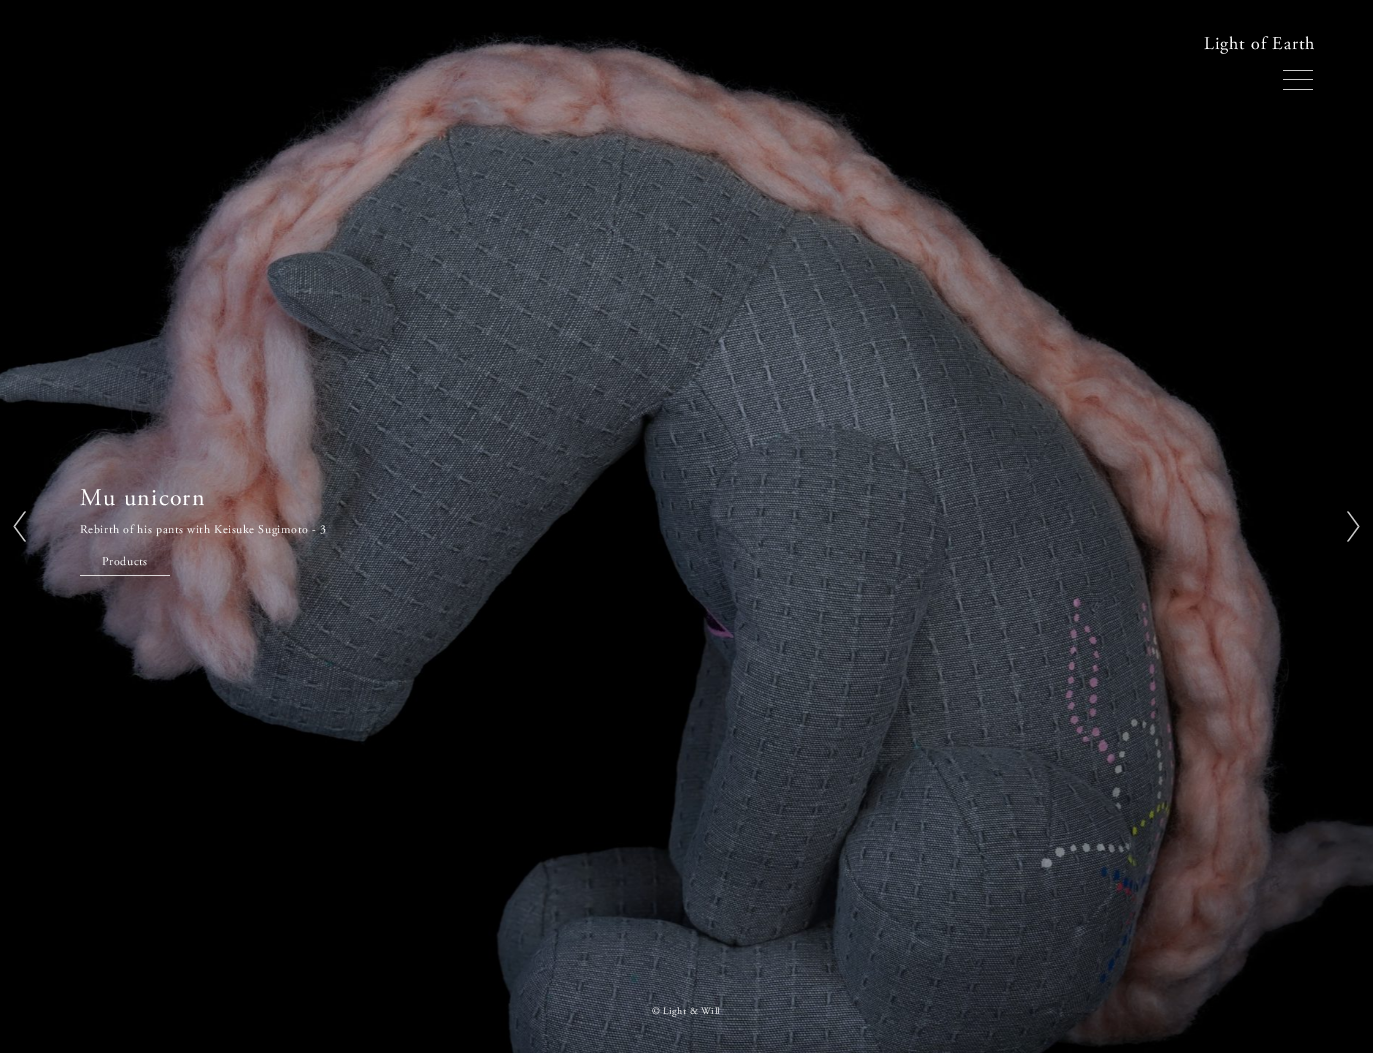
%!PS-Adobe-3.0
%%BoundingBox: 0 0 1373 1053
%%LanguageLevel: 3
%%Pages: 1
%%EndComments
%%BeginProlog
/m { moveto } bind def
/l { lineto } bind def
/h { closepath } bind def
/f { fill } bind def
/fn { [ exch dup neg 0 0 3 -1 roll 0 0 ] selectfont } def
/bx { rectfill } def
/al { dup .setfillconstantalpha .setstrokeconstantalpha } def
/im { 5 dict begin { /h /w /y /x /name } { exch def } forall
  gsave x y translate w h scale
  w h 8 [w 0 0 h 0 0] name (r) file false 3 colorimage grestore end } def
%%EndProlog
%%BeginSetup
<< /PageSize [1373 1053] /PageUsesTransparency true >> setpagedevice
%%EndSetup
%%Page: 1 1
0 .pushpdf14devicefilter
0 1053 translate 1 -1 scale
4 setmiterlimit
0 setgray
0 0 1373 1053 bx
(image0.raw) 0 32 1373 1021 im
/AdobeGaramond-Regular 18 fn
1 setgray
1204 49 m 0.9 0 (Light of Earth) ashow
0.8 setgray
1283 70 30 1 bx
1283 79 30 1 bx
1283 89 30 1 bx
/AdobeGaramond-Regular 24 fn
1 setgray
80 505 m 1.25 0 (Mu unicorn) ashow
/AdobeGaramond-Regular 12 fn
80 533 m 0.6 0 (Rebirth of his pants with Keisuke Sugimoto - 3) ashow
0.8 al
80 575 90 1 bx
1 al
102 565 m 0.6 0 (Products) ashow
0.8 setgray
24.5 511.5 m 26 511.5 l 15 526.5 l 13.5 526.5 l h f
0.8 al
1 setgray
13.5 526.5 m 15 526.5 l 26 541.5 l 24.5 541.5 l h f
1 al
0.8 setgray
1348.5 541.5 m 1347 541.5 l 1358 526.5 l 1359.5 526.5 l h f
0.8 al
1 setgray
1359.5 526.5 m 1358 526.5 l 1347 511.5 l 1348.5 511.5 l h f
/AdobeGaramond-Regular 10 fn
1 al
652 1014 m 0.5 0 (© Light & Will) ashow
.poppdf14devicefilter showpage
%%EOF
